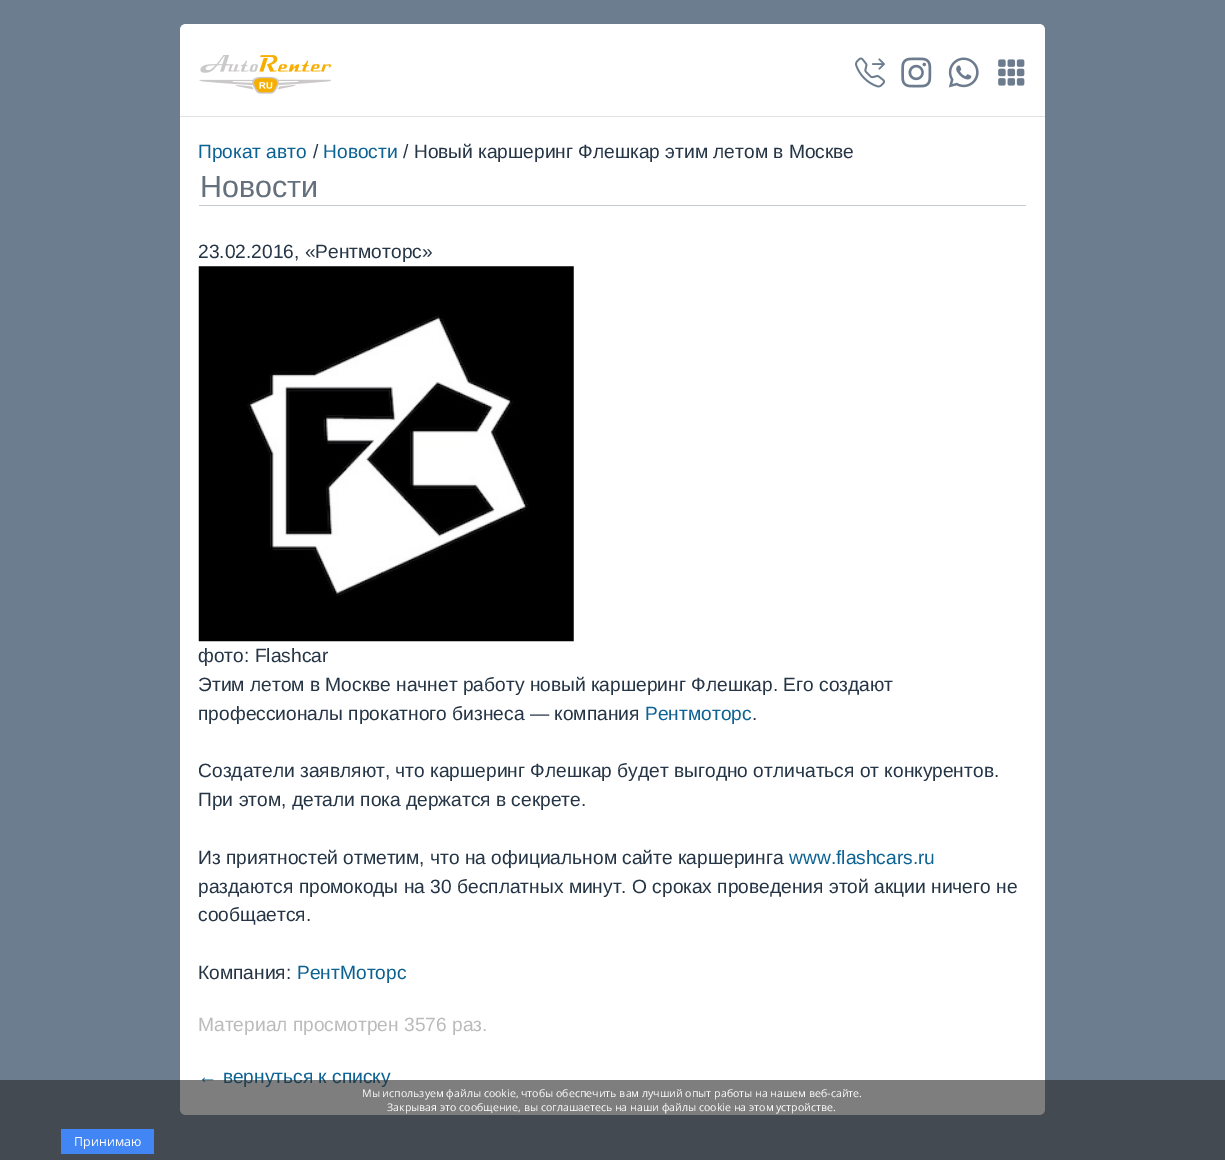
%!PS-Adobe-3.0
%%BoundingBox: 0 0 1225 1160
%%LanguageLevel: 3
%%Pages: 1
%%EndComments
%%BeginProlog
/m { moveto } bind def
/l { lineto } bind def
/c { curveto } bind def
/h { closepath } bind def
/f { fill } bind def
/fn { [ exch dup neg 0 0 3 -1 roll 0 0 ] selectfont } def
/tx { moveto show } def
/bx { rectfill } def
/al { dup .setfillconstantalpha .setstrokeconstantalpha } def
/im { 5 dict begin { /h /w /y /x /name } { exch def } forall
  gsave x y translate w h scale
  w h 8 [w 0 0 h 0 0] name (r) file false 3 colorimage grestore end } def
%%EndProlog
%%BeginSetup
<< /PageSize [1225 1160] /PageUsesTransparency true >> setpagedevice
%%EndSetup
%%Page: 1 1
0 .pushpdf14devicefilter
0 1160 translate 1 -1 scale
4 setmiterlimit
0.424 0.49 0.561 setrgbcolor
0 0 1225 1160 bx
1 setgray
186 24 m 1039 24 l 1042.5 24 1045 26.5 1045 30 c 1045 118 l 180 118 l 180 30 l 180 26.5 182.5 24 186 24 c h f
0.89 0.886 0.886 setrgbcolor
180 116 865 1 bx
(image0.raw) 199 55 132 39 im
(image1.raw) 855 57 30 31 im
(image2.raw) 901 57 31 31 im
(image3.raw) 948 57 31 31 im
(image4.raw) 998 59 27 27 im
1 setgray
180 118 865 972 bx
/LiberationSans-Regular 19.2 fn
0.047 0.384 0.576 setrgbcolor
(Прокат авто) 198 158 tx
0.145 0.208 0.271 setrgbcolor
(/) 313 158 tx
0.047 0.384 0.576 setrgbcolor
(Новости) 323 158 tx
0.145 0.208 0.271 setrgbcolor
(/ Новый каршеринг Флешкар этим летом в Москве) 403 158 tx
0.769 0.792 0.82 setrgbcolor
199 205 827 1 bx
/LiberationSans-Regular 30.5 fn
0.392 0.439 0.486 setrgbcolor
(Новости) 200 197 tx
/LiberationSans-Regular 19.2 fn
0.145 0.208 0.271 setrgbcolor
(23.02.2016, «Рентмоторс») 198 258 tx
(image5.raw) 198 266 376 376 im
(фото: Flashcar) 198 662 tx
(Этим летом в Москве начнет работу новый каршеринг Флешкар. Его создают) 198 691 tx
(профессионалы прокатного бизнеса — компания) 198 720 tx
0.047 0.384 0.576 setrgbcolor
(Рентмоторс) 645 720 tx
0.145 0.208 0.271 setrgbcolor
(.) 752 720 tx
(Создатели заявляют, что каршеринг Флешкар будет выгодно отличаться от конкурентов.) 198 777 tx
(При этом, детали пока держатся в секрете.) 198 806 tx
(Из приятностей отметим, что на официальном сайте каршеринга) 198 864 tx
0.047 0.384 0.576 setrgbcolor
(www.flashcars.ru) 789 864 tx
0.145 0.208 0.271 setrgbcolor
(раздаются промокоды на 30 бесплатных минут. О сроках проведения этой акции ничего не) 198 893 tx
(сообщается.) 198 921 tx
(Компания:) 198 979 tx
0.047 0.384 0.576 setrgbcolor
(РентМоторс) 297 979 tx
0.733 setgray
(Материал просмотрен 3576 раз.) 198 1031 tx
0.047 0.384 0.576 setrgbcolor
(← вернуться к списку) 198 1083 tx
1 setgray
180 1090 m 1045 1090 l 1045 1109 l 1045 1112.5 1042.5 1115 1039 1115 c 186 1115 l 182.5 1115 180 1112.5 180 1109 c h f
0.6 al
0.157 setgray
0 1080 1225 80 bx
/OpenSans-Regular 10.6 fn
1 al
1 setgray
(Мы используем файлы cookie, чтобы обеспечить вам лучший опыт работы на нашем веб-сайте.) 362 1097 tx
(Закрывая это сообщение, вы соглашаетесь на наши файлы cookie на этом устройстве.) 387 1111 tx
0.259 0.522 0.957 setrgbcolor
61 1129 93 25 bx
/OpenSans-Regular 12.5 fn
1 setgray
(Принимаю) 74 1146 tx
.poppdf14devicefilter showpage
%%EOF
